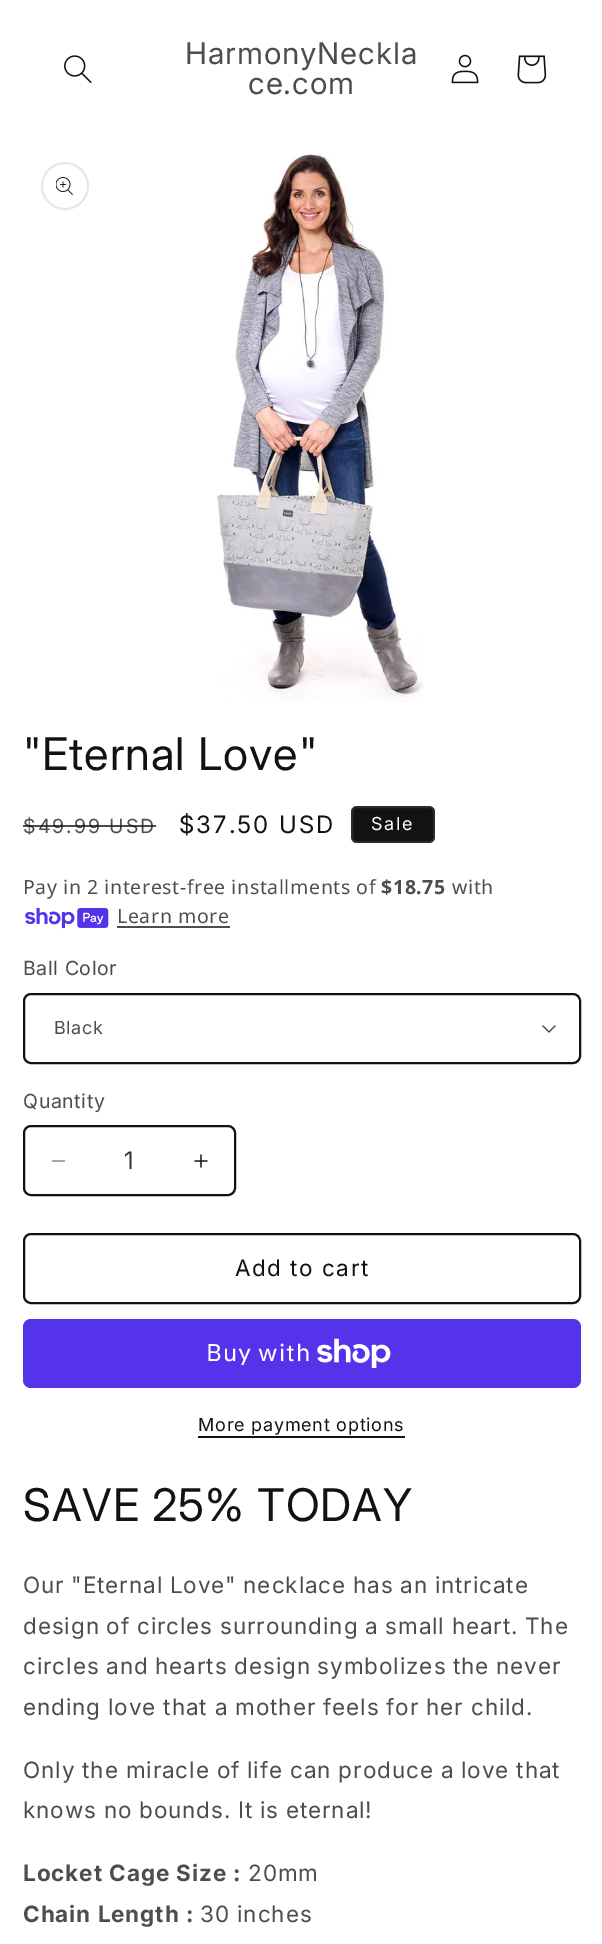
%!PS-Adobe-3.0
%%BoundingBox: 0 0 602 1944
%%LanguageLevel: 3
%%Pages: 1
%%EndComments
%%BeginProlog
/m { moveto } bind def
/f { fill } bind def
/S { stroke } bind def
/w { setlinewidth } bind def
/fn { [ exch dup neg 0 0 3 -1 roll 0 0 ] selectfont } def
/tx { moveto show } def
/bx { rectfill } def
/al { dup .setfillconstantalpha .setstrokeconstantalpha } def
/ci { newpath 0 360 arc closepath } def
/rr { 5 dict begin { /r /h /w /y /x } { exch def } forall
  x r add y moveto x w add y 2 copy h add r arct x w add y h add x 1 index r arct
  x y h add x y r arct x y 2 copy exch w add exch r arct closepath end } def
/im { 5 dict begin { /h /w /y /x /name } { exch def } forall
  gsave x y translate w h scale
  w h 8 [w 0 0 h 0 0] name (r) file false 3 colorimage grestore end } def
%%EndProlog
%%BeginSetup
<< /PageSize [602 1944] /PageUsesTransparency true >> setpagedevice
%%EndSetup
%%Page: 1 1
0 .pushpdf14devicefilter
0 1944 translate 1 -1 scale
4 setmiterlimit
1 setgray
0 0 602 1944 bx
(image0.raw) 64 55 28 28 im
/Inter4-Regular 30 fn
0.302 setgray
185 64 m 0.9 0 (HarmonyNeckla) ashow
248 94 m 0.9 0 (ce.com) ashow
(image1.raw) 451 54 28 30 im
(image2.raw) 517 55 30 29 im
0.906 setgray
2 w
65 186 23 ci S
(image3.raw) 56 177 17 18 im
(image4.raw) 216 154 208 548 im
/Inter-Regular 45 fn
0.071 setgray
23 770 m 0.9 0 ("Eternal Love") ashow
/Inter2-Regular 19.5 fn
0.302 setgray
23 833 m 2 0 ($49.99 USD) ashow
0.75 al
0.071 setgray
23 825 133 2 bx
/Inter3-Regular 24 fn
1 al
179 833 m 2 0 ($37.50 USD) ashow
351 806 84 37 6 rr f
0.1 al
1 setgray
352 807 82 35 5 rr S
/Inter2-Regular 18 fn
1 al
371 830 m 1.5 0 (Sale) ashow
/NotoSans-Regular 19.5 fn
0.302 setgray
23 894 m 0.6 0 (Pay in 2 interest-free installments of) ashow
/NotoSans-Bold 19.5 fn
381 894 m 0.6 0 ($18.75) ashow
/NotoSans-Regular 19.5 fn
452 894 m 0.6 0 (with) ashow
(image5.raw) 25 908 84 21 im
117 923 m 0.6 0 (Learn more) ashow
117 926 113 2 bx
/Inter2-Regular 19.5 fn
23 975 m 0.6 0 (Ball Color) ashow
(image6.raw) 542 1025 14 8 im
0.071 setgray
24 994 556 69 7 rr S
/Inter2-Regular 18 fn
0.302 setgray
54 1034 m 0.6 0 (Black) ashow
/Inter2-Regular 19.5 fn
23 1108 m 0.6 0 (Quantity) ashow
(image7.raw) 51 1160 15 2 im
(image8.raw) 194 1154 14 14 im
0.071 setgray
24 1126 211 69 7 rr S
/Inter3-Regular 24 fn
0.212 setgray
(1) 124 1169 tx
0.071 setgray
24 1234 556 69 7 rr S
/Inter2-Regular 22.5 fn
235 1276 m 1.5 0 (Add to cart) ashow
0.329 0.2 0.922 setrgbcolor
23 1319 558 69 8 rr f
/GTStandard-Regular 24 fn
1 setgray
206 1361 m 0.9 0 (Buy with) ashow
(image9.raw) 317 1338 74 30 im
/Inter2-Regular 18 fn
0.071 setgray
198 1431 m 0.75 0 (More payment options) ashow
198 1436 207 2 bx
/Inter-Regular 45 fn
23 1521 m 0.9 0 (SAVE 25% TODAY) ashow
/Inter2-Regular 22.5 fn
0.302 setgray
23 1593 m -0.5 0 32 0.9 0 (Our "Eternal Love" necklace has an intricate) awidthshow
23 1634 m -0.5 0 32 0.9 0 (design of circles surrounding a small heart. The) awidthshow
23 1674 m -0.5 0 32 0.9 0 (circles and hearts design symbolizes the never) awidthshow
23 1715 m -0.25 0 32 0.9 0 (ending love that a mother feels for her child.) awidthshow
23 1778 m -0.25 0 32 0.9 0 (Only the miracle of life can produce a love that) awidthshow
23 1818 m -0.5 0 32 0.9 0 (knows no bounds. It is eternal!) awidthshow
/Inter-Bold 22.5 fn
23 1881 m 0.9 0 (Locket Cage Size :) ashow
/Inter2-Regular 22.5 fn
248 1881 m 0.9 0 (20mm) ashow
/Inter-Bold 22.5 fn
23 1922 m 0.9 0 (Chain Length :) ashow
/Inter2-Regular 22.5 fn
200 1922 m 0.9 0 (30 inches) ashow
.poppdf14devicefilter showpage
%%EOF
